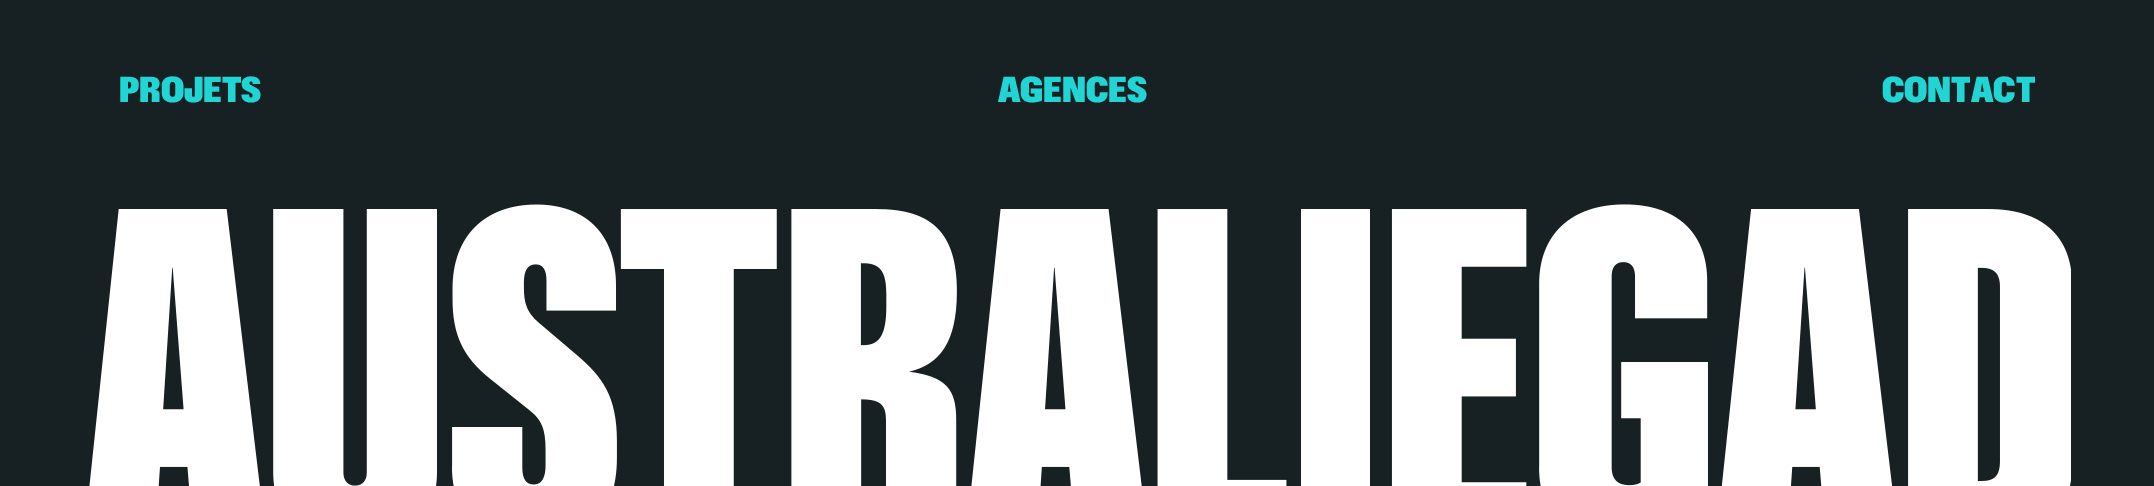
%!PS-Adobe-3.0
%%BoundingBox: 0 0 2154 486
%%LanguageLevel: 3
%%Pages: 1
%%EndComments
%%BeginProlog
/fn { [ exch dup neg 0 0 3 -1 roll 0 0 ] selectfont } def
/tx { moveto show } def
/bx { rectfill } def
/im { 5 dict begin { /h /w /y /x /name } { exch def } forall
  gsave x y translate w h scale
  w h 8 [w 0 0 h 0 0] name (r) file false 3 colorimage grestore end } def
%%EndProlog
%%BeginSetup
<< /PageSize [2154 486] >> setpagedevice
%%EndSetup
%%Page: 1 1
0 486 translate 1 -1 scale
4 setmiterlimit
0.09 0.125 0.137 setrgbcolor
0 0 2154 486 bx
/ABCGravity-Regular 36 fn
0.129 0.835 0.835 setrgbcolor
(PROJETS) 119 102 tx
(AGENCES) 998 102 tx
(CONTACT) 1882 102 tx
(image0.raw) 89 204 1982 282 im
showpage
%%EOF
